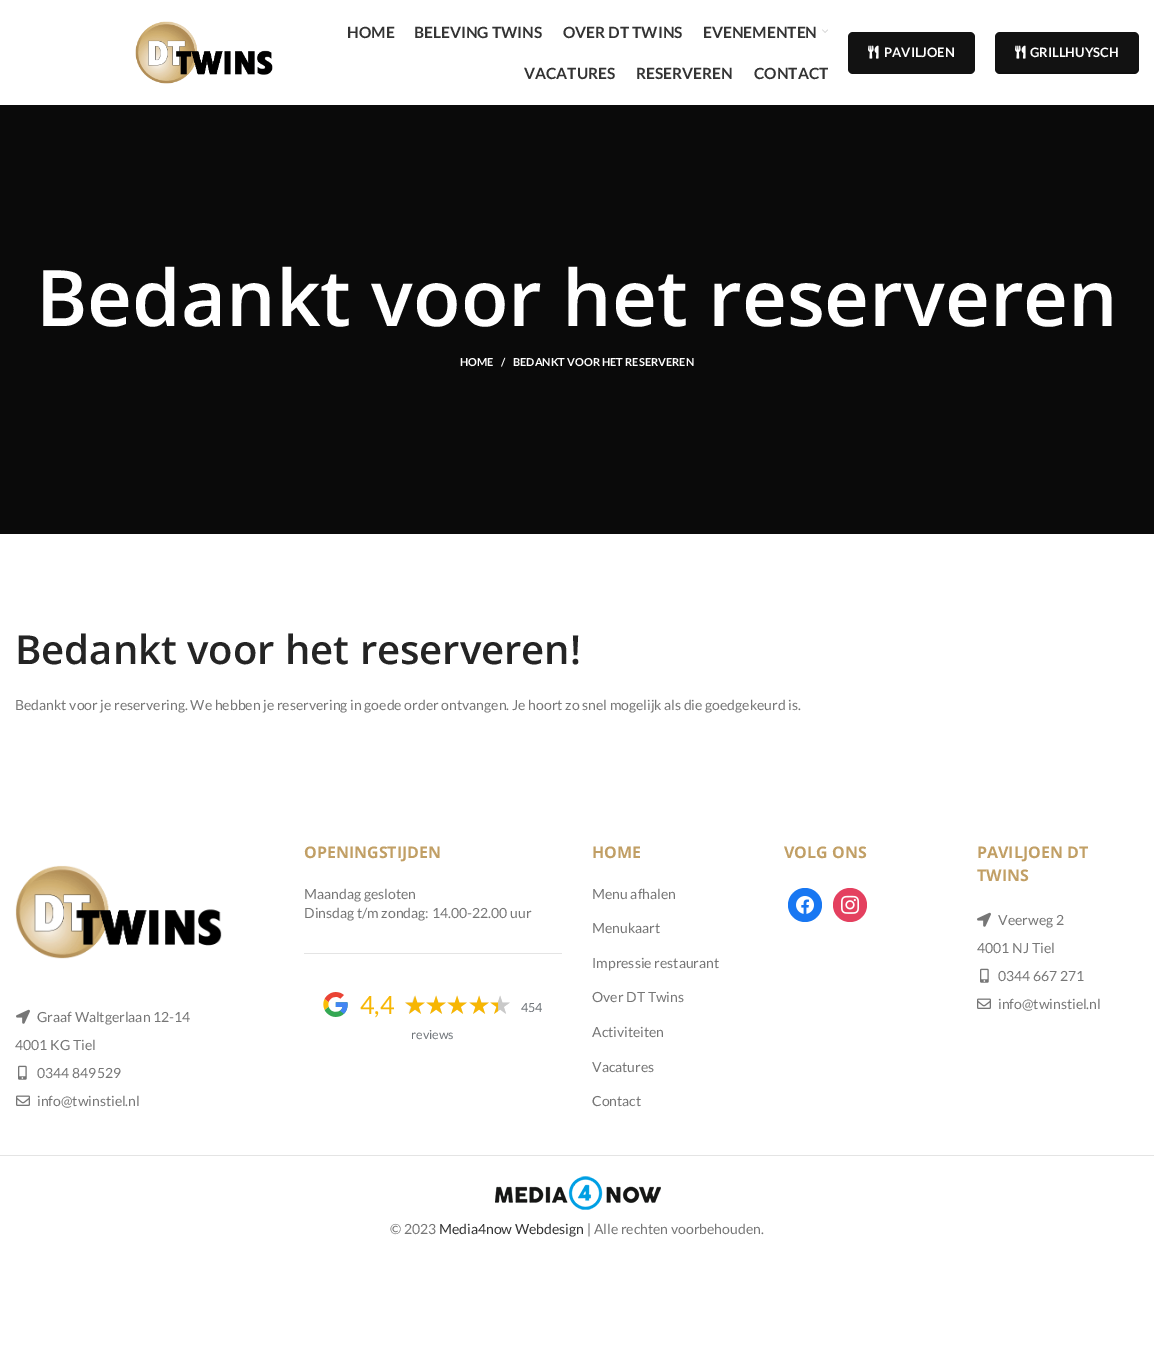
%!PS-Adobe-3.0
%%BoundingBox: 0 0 1154 1362
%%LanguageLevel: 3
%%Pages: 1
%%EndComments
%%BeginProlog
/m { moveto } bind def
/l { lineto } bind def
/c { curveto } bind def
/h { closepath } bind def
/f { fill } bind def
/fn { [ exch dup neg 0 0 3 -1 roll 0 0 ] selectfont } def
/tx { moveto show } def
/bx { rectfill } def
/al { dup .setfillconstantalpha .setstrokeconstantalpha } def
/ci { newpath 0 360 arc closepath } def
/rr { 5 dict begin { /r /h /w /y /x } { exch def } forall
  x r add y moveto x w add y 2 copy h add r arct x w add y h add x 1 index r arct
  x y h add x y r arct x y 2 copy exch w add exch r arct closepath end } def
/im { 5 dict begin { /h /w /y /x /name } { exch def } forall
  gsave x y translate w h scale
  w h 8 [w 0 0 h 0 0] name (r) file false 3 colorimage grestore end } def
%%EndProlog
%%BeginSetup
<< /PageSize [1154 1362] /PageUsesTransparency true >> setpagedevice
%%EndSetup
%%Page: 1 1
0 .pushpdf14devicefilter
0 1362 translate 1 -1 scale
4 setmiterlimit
1 setgray
0 0 1154 1362 bx
(image0.raw) 135 21 138 63 im
/Lato-Bold 15.5 fn
0.2 setgray
(HOME) 347 38 tx
(BELEVING TWINS) 414 38 tx
(OVER DT TWINS) 563 38 tx
(EVENEMENTEN) 703 38 tx
(image1.raw) 822 29 6 4 im
(VACATURES) 524 79 tx
(RESERVEREN) 636 79 tx
(CONTACT) 754 79 tx
0.071 setgray
848 32 127 42 5 rr f
(image2.raw) 868 45 11 14 im
/Lato-Bold 13 fn
1 setgray
(PAVILJOEN) 884 57 tx
0.071 setgray
995 32 144 42 5 rr f
0.15 al
0 setgray
995 67 m 995 69 l 995 72 997 74 1000 74 c 1134 74 l 1137 74 1139 72 1139 69 c 1139 67 l 1139 70 1137 72 1134 72 c 1000 72 l 997 72 995 70 995 67 c h f
1 al
(image2.raw) 1015 45 11 14 im
1 setgray
(GRILLHUYSCH) 1030 57 tx
0.039 setgray
0 105 1154 429 bx
/OpenSans-SemiBold 78 fn
1 setgray
(Bedankt voor het reserveren) 36 326 tx
/Lato-Bold 11 fn
(HOME) 460 366 tx
(/) 501 366 tx
(BEDANKT VOOR HET RESERVEREN) 513 366 tx
/OpenSans-SemiBold 40 fn
0.141 setgray
(Bedankt voor het reserveren!) 15 664 tx
/Lato-Regular 14 fn
0.463 setgray
(Bedankt voor je reservering. We hebben je reservering in goede order ontvangen. Je hoort zo snel mogelijk als die goedgekeurd is.) 15 710 tx
0.894 setgray
304 953 258 1 bx
/OpenSans-Bold 16 fn
0.757 0.624 0.396 setrgbcolor
(OPENINGSTIJDEN) 304 858 tx
/Lato-Regular 14 fn
0.463 setgray
(Maandag gesloten) 304 899 tx
(Dinsdag t/m zondag: 14.00-22.00 uur) 304 918 tx
(image3.raw) 323 992 25 25 im
/Lato-Regular 25 fn
0.969 0.714 0.012 setrgbcolor
(4,4) 360 1014 tx
(image9.raw) 405 996 19 17 im
(image4.raw) 405 995 20 19 im
(image10.raw) 427 996 19 17 im
(image5.raw) 426 995 20 19 im
(image11.raw) 448 996 19 17 im
(image6.raw) 447 995 20 19 im
(image12.raw) 470 996 19 17 im
(image7.raw) 469 995 20 19 im
(image13.raw) 491 996 19 17 im
(image8.raw) 490 995 20 19 im
/Lato-Regular 12.5 fn
0.439 0.459 0.478 setrgbcolor
(454) 521 1012 tx
(reviews) 411 1039 tx
/OpenSans-Bold 16 fn
0.757 0.624 0.396 setrgbcolor
(HOME) 592 858 tx
/Lato-Regular 14 fn
0.463 setgray
(Menu afhalen) 592 899 tx
(Menukaart) 592 933 tx
(Impressie restaurant) 592 968 tx
(Over DT Twins) 592 1002 tx
(Activiteiten) 592 1037 tx
(Vacatures) 592 1072 tx
(Contact) 592 1106 tx
/OpenSans-Bold 16 fn
0.757 0.624 0.396 setrgbcolor
(VOLG ONS) 784 858 tx
0.094 0.467 0.949 setrgbcolor
805 905 17 ci f
(image14.raw) 796 896 18 18 im
0.894 0.251 0.373 setrgbcolor
850 905 17 ci f
(image15.raw) 841 895 18 19 im
0.757 0.624 0.396 setrgbcolor
(PAVILJOEN DT) 977 858 tx
(TWINS) 977 881 tx
(image16.raw) 977 912 14 15 im
/Lato-Regular 14 fn
0.463 setgray
(Veerweg 2) 998 925 tx
(4001 NJ Tiel) 977 953 tx
(image17.raw) 980 968 9 15 im
(0344 667 271) 998 981 tx
(image18.raw) 977 998 14 11 im
(info@twinstiel.nl) 998 1009 tx
(image19.raw) 15 865 207 94 im
(image16.raw) 16 1009 14 15 im
(Graaf Waltgerlaan 12-14) 37 1022 tx
(4001 KG Tiel) 15 1050 tx
(image17.raw) 18 1065 9 15 im
(0344 849529) 37 1078 tx
(image18.raw) 16 1095 14 11 im
(info@twinstiel.nl) 37 1106 tx
0.894 setgray
0 1155 1154 1 bx
(image20.raw) 495 1176 166 34 im
0.463 setgray
(© 2023) 390 1234 tx
0.2 setgray
(Media4now Webdesign) 439 1234 tx
0.463 setgray
(| Alle rechten voorbehouden.) 587 1234 tx
.poppdf14devicefilter showpage
%%EOF
